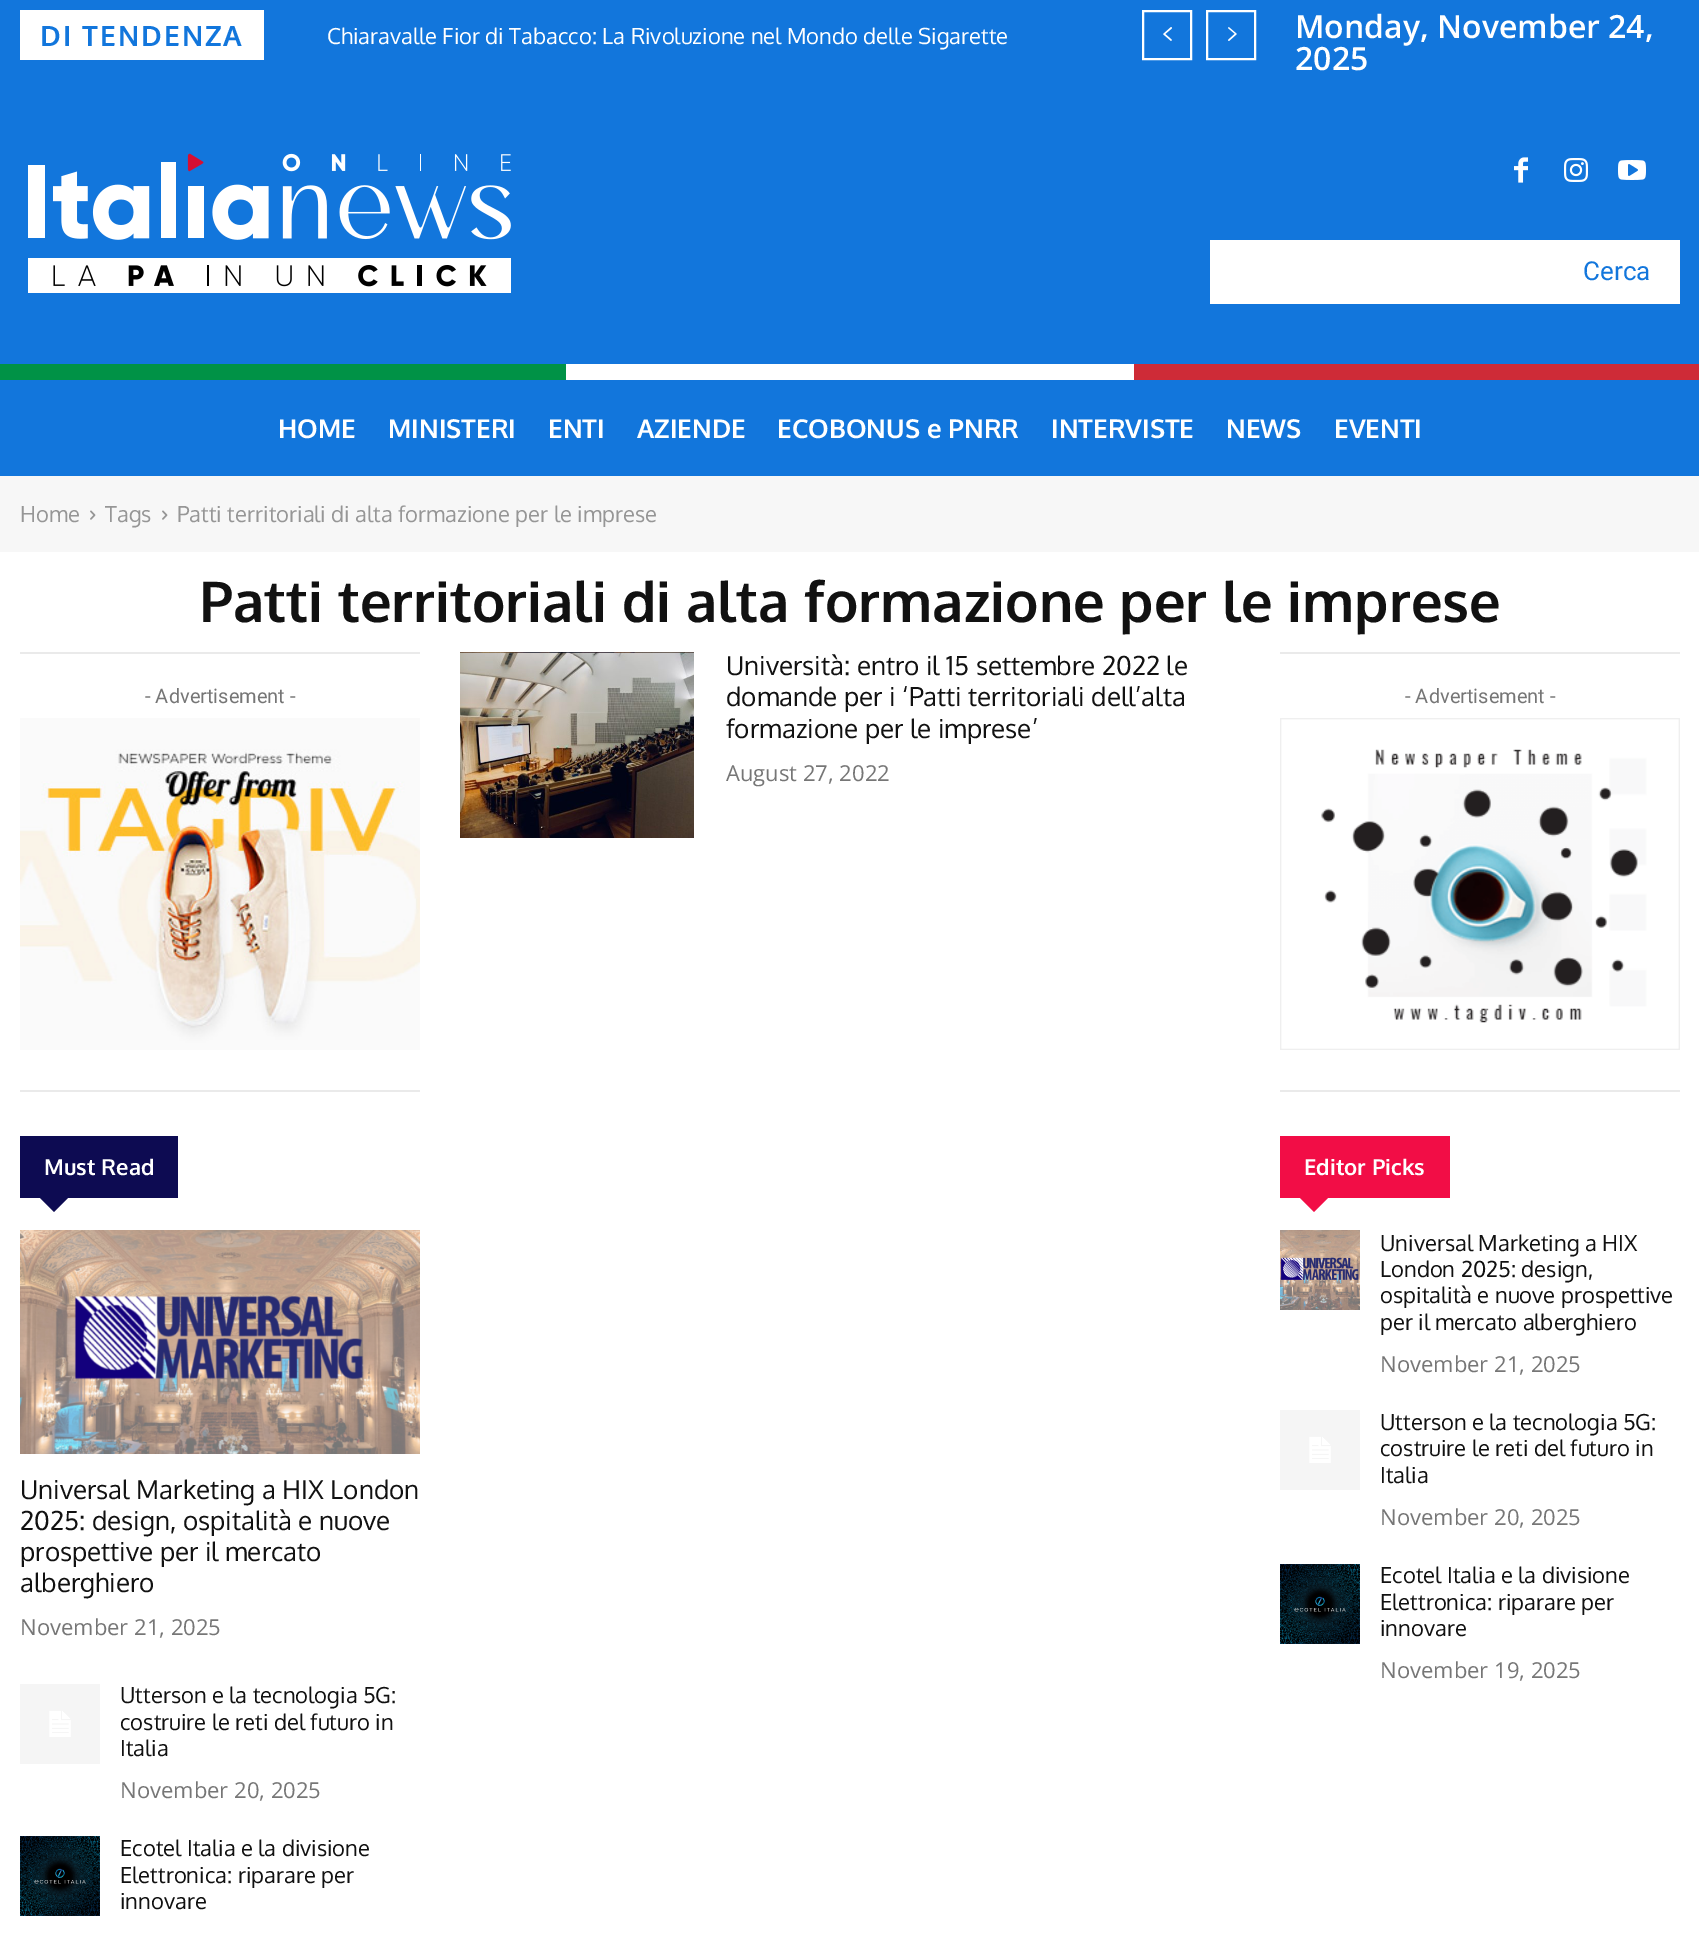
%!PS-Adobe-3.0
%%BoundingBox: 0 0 1699 1942
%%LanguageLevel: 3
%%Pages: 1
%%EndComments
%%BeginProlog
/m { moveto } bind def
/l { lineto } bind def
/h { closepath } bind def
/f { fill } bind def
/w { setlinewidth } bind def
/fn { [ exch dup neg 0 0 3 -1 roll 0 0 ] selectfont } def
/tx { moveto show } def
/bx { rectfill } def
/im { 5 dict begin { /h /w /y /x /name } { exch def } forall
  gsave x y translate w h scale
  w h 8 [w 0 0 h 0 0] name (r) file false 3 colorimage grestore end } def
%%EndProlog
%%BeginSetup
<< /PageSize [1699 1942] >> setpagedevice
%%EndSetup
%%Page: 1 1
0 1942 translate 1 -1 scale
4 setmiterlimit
1 setgray
0 0 1699 1942 bx
0.071 0.463 0.863 setrgbcolor
0 0 1699 364 bx
1 setgray
20 10 244 50 bx
/Oxygen-Bold 28 fn
0.071 0.463 0.863 setrgbcolor
40 46 m 2 0 (DI TENDENZA) ashow
/Oxygen-Regular 22 fn
1 setgray
(Chiaravalle Fior di Tabacco: La Rivoluzione nel Mondo delle Sigarette) 327 44 tx
2 w
1143 11 48 48 rectstroke
(image0.raw) 1163 27 9 14 im
1207 11 48 48 rectstroke
(image1.raw) 1228 27 9 14 im
/OpenSans-SemiBold 32 fn
(Monday, November 24,) 1295 38 tx
(2025) 1295 70 tx
(image2.raw) 28 153 483 140 im
(image3.raw) 1514 157 14 26 im
(image4.raw) 1564 158 24 24 im
(image5.raw) 1618 160 28 20 im
1210 240 470 64 bx
/Roboto-Regular 26 fn
0.071 0.463 0.863 setrgbcolor
(Cerca) 1583 280 tx
0 0.573 0.275 setrgbcolor
0 364 566 16 bx
0.808 0.169 0.216 setrgbcolor
1134 364 565 16 bx
0.071 0.463 0.863 setrgbcolor
0 380 1699 96 bx
/Oxygen-Bold 26 fn
1 setgray
(HOME) 278 438 tx
(MINISTERI) 388 438 tx
(ENTI) 548 438 tx
(AZIENDE) 637 438 tx
(ECOBONUS e PNRR) 777 438 tx
(INTERVISTE) 1051 438 tx
(NEWS) 1226 438 tx
(EVENTI) 1334 438 tx
0.969 setgray
0 476 1699 76 bx
/Oxygen-Regular 22 fn
0.588 setgray
(Home) 20 522 tx
(image6.raw) 90 510 6 10 im
(Tags) 105 522 tx
(image6.raw) 162 510 6 10 im
(Patti territoriali di alta formazione per le imprese) 177 522 tx
/Oxygen-Bold 56 fn
0.067 setgray
(Patti territoriali di alta formazione per le imprese) 199 622 tx
0.918 setgray
20 652 400 2 bx
20 1090 400 2 bx
/Roboto-Regular 20 fn
0.463 setgray
(- Advertisement -) 145 703 tx
(image7.raw) 20 718 400 332 im
0.051 0.043 0.322 setrgbcolor
20 1136 158 62 bx
/Oxygen-Bold 22 fn
1 setgray
(Must Read) 44 1175 tx
0.051 0.043 0.322 setrgbcolor
40 1198 m 68 1198 l 54 1212 l h f
(image8.raw) 20 1230 400 224 im
/Oxygen-Regular 26 fn
0.067 setgray
(Universal Marketing a HIX London) 20 1499 tx
(2025: design, ospitalità e nuove) 20 1530 tx
(prospettive per il mercato) 20 1561 tx
(alberghiero) 20 1592 tx
/OpenSans-Regular 22 fn
0.463 setgray
(November 21, 2025) 20 1635 tx
(image9.raw) 20 1684 80 80 im
/Oxygen-Regular 22 fn
0.067 setgray
(Utterson e la tecnologia 5G:) 120 1703 tx
(costruire le reti del futuro in) 120 1730 tx
(Italia) 120 1756 tx
/OpenSans-Regular 22 fn
0.463 setgray
(November 20, 2025) 120 1798 tx
(image10.raw) 20 1836 80 80 im
/Oxygen-Regular 22 fn
0.067 setgray
(Ecotel Italia e la divisione) 120 1856 tx
(Elettronica: riparare per) 120 1883 tx
(innovare) 120 1909 tx
(image11.raw) 460 652 234 186 im
/Oxygen-Regular 26 fn
(Università: entro il 15 settembre 2022 le) 726 675 tx
(domande per i ‘Patti territoriali dell’alta) 726 706 tx
(formazione per le imprese’) 726 738 tx
/OpenSans-Regular 22 fn
0.463 setgray
(August 27, 2022) 726 781 tx
0.918 setgray
1280 652 400 2 bx
1280 1090 400 2 bx
/Roboto-Regular 20 fn
0.463 setgray
(- Advertisement -) 1405 703 tx
(image12.raw) 1280 718 400 332 im
0.949 0.051 0.275 setrgbcolor
1280 1136 170 62 bx
/Oxygen-Bold 22 fn
1 setgray
(Editor Picks) 1304 1175 tx
0.949 0.051 0.275 setrgbcolor
1300 1198 m 1328 1198 l 1314 1212 l h f
(image13.raw) 1280 1230 80 80 im
/Oxygen-Regular 22 fn
0.067 setgray
(Universal Marketing a HIX) 1380 1251 tx
(London 2025: design,) 1380 1277 tx
(ospitalità e nuove prospettive) 1380 1303 tx
(per il mercato alberghiero) 1380 1330 tx
/OpenSans-Regular 22 fn
0.463 setgray
(November 21, 2025) 1380 1372 tx
(image9.raw) 1280 1410 80 80 im
/Oxygen-Regular 22 fn
0.067 setgray
(Utterson e la tecnologia 5G:) 1380 1430 tx
(costruire le reti del futuro in) 1380 1456 tx
(Italia) 1380 1483 tx
/OpenSans-Regular 22 fn
0.463 setgray
(November 20, 2025) 1380 1525 tx
(image14.raw) 1280 1564 80 80 im
/Oxygen-Regular 22 fn
0.067 setgray
(Ecotel Italia e la divisione) 1380 1583 tx
(Elettronica: riparare per) 1380 1610 tx
(innovare) 1380 1636 tx
/OpenSans-Regular 22 fn
0.463 setgray
(November 19, 2025) 1380 1678 tx
showpage
%%EOF
